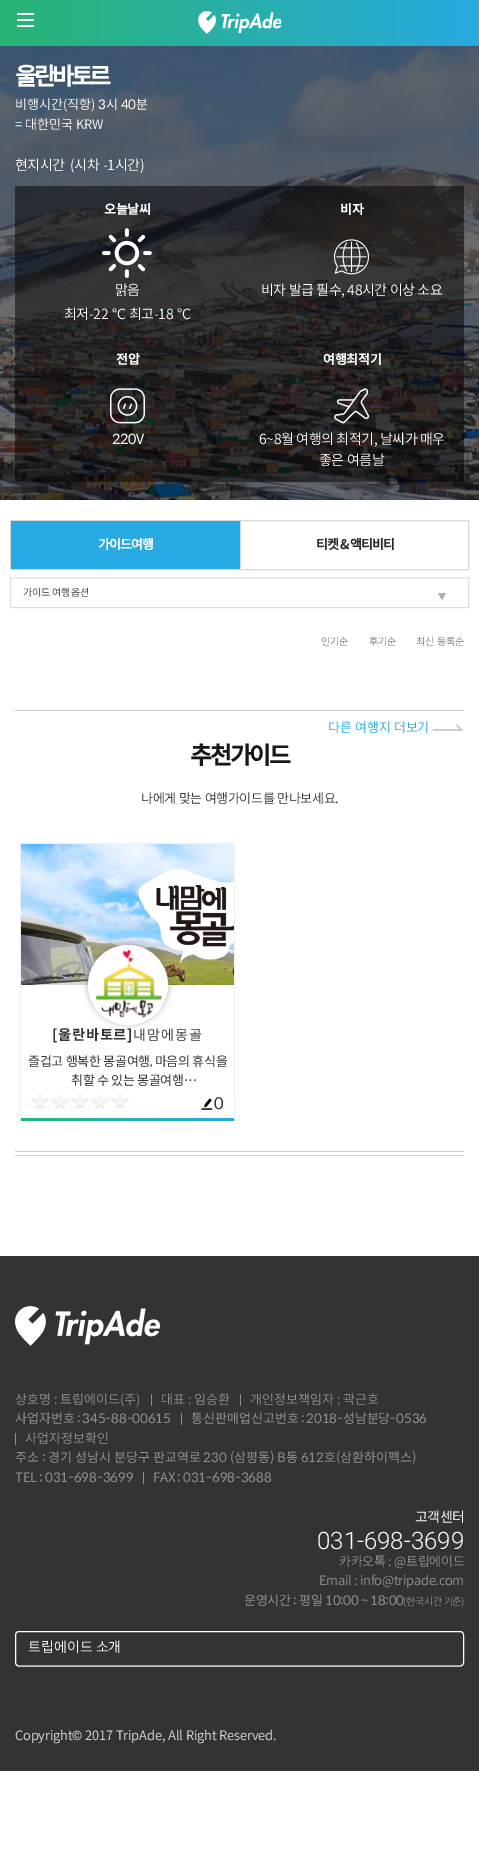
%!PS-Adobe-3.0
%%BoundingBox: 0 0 479 1851
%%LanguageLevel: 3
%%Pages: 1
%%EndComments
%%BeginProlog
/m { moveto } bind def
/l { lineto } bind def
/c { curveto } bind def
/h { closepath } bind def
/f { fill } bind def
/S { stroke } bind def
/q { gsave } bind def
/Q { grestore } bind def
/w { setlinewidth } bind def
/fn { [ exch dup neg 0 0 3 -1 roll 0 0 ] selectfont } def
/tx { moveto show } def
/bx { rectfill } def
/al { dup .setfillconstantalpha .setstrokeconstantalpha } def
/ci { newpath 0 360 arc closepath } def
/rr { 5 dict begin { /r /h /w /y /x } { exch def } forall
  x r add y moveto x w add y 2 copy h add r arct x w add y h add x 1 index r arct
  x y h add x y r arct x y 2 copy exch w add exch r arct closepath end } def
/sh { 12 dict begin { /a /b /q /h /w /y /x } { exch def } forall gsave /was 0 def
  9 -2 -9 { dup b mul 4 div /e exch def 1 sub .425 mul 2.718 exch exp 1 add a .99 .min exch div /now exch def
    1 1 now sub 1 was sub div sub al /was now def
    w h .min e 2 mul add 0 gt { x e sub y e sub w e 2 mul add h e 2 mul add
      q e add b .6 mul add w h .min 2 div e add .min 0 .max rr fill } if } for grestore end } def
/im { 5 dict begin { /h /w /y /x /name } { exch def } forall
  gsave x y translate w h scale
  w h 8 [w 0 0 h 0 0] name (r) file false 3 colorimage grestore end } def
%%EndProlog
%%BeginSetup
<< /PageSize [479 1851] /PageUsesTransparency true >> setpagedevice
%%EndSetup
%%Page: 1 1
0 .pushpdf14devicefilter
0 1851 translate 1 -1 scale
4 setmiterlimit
1 setgray
0 0 479 1851 bx
q 0 0 m 479 0 l 479 46 l 0 46 l h clip newpath
<< /ShadingType 2 /ColorSpace /DeviceRGB /Coords [0 23 479 23] /Extend [true true] /Function << /FunctionType 2 /Domain [0 1] /C0 [0.161 0.706 0.451] /C1 [0.153 0.667 0.882] /N 1 >> >> shfill Q
17 13 17 2 bx
17 19 17 2 bx
17 25 17 2 bx
(image0.raw) 198 11 84 23 im
(image1.raw) 0 46 479 454 im
/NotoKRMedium-Bold 24 fn
15 85 m -3.5 0 (울란바토르) ashow
/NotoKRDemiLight-Light 13 fn
(비행시간\(직항\)) 15 109 tx
/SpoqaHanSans-Regular 13 fn
(3시 40분) 98 109 tx
/NotoKRDemiLight-Light 13 fn
(= 대한민국 KRW) 15 129 tx
/NotoKRDemiLight-Light 14 fn
15 170 m -0.4 0 (현지시간) ashow
70 170 m 1 0 32 -0.4 0 (\(시차 -1시간\)) awidthshow
0.5 al
0.004 setgray
15 186 449 296 bx
/NotoKRMedium-Bold 13 fn
1 al
1 setgray
104 214 m -0.3 0 (오늘날씨) ashow
(image2.raw) 102 228 50 50 im
/NotoKRDemiLight-Light 14 fn
115 295 m -0.4 0 (맑음) ashow
64 319 m -0.4 0 (최저-22) ashow
/SpoqaHanSans-Regular 14 fn
112 319 m -0.4 0 (°) ashow
/NotoKRDemiLight-Light 14 fn
117 319 m -0.4 0 (C) ashow
129 319 m -0.4 0 (최고-18) ashow
/SpoqaHanSans-Regular 14 fn
177 319 m -0.4 0 (°) ashow
/NotoKRDemiLight-Light 14 fn
182 319 m -0.4 0 (C) ashow
/NotoKRMedium-Bold 13 fn
340 214 m -0.3 0 (비자) ashow
(image3.raw) 334 239 35 36 im
/NotoKRDemiLight-Light 14 fn
261 295 m -0.4 0 (비자 발급 필수, 48시간 이상 소요) ashow
/NotoKRMedium-Bold 13 fn
116 364 m -0.3 0 (전압) ashow
(image4.raw) 110 388 35 36 im
/SpoqaHanSans-Regular 14 fn
112 444 m -0.4 0 (220V) ashow
/NotoKRMedium-Bold 13 fn
323 364 m -0.3 0 (여행최적기) ashow
(image5.raw) 334 388 36 36 im
/NotoKRDemiLight-Light 14 fn
259 444 m -0.4 0 (6~8월 여행의 최적기, 날씨가 매우) ashow
319 465 m -0.4 0 (좋은 여름날) ashow
0.843 setgray
10 520 230 1 bx
10 569 230 1 bx
10 520 1 50 bx
0.153 0.667 0.882 setrgbcolor
11 521 229 48 bx
/NotoKRMedium-Bold 13 fn
1 setgray
98 549 m -1 0 (가이드여행) ashow
0.843 setgray
240.5 520.5 228 49 rectstroke
0.161 0.169 0.173 setrgbcolor
316 549 m -1 0 (티켓 & 액티비티) ashow
0.867 setgray
10.5 578 m 468.5 578 l 468.5 607.5 l 10.5 607.5 l h S
/NotoKRDemiLight-Light 10 fn
0.2 setgray
23 596 m -0.3 0 (가이드 여행 옵션) ashow
0.682 0.675 0.702 setrgbcolor
438 593 m 446 593 l 442 600 l h f
0.467 setgray
(인기순) 321 645 tx
(후기순) 369 645 tx
(최신 등록순) 416 645 tx
0.8 setgray
15 710 449 1 bx
/NotoKRDemiLight-Light 13 fn
0.153 0.667 0.882 setrgbcolor
(다른 여행지 더보기) 328 732 tx
(image6.raw) 433 724 31 7 im
/NotoKRMedium-Bold 24 fn
0.09 setgray
190 764 m -2.25 0 (추천가이드) ashow
/NotoKRDemiLight-Light 13 fn
0.2 setgray
141 803 m -0.3 0 (나에게 맞는 여행가이드를 만나보세요.) ashow
0.941 setgray
20 843 215 1 bx
234 843 1 278 bx
20 843 1 278 bx
(image7.raw) 21 844 213 141 im
0.502 setgray
88 944 80 80 40 3.5 0.65 sh
1 setgray
128 985 38 ci q f Q
4 w
S
(image8.raw) 95 949 67 69 im
/NotoKRMedium-Bold 14 fn
0.2 setgray
52 1040 m 1 0 ([울란바토르]) ashow
/NotoKRDemiLight-Light 14 fn
133 1040 m 1 0 (내맘에몽골) ashow
/SpoqaHanSans-Regular 13 fn
28 1066 m -0.3 0 (즐겁고 행복한 몽골여행, 마음의 휴식을) ashow
71 1085 m -0.3 0 (취할 수 있는 몽골여행…) ashow
(image9.raw) 31 1094 98 15 im
(image10.raw) 201 1098 12 12 im
/SpoqaHanSans-Regular 16 fn
0.161 0.169 0.173 setrgbcolor
(0) 214 1109 tx
q 21 1118 m 234 1118 l 234 1121 l 21 1121 l h clip newpath
<< /ShadingType 2 /ColorSpace /DeviceRGB /Coords [21 1120 234 1120] /Extend [true true] /Function << /FunctionType 2 /Domain [0 1] /C0 [0.161 0.706 0.451] /C1 [0.153 0.667 0.882] /N 1 >> >> shfill Q
0.8 setgray
15 1151 449 1 bx
15 1155 449 1 bx
0.2 setgray
0 1256 479 515 bx
(image11.raw) 15 1306 145 40 im
/NotoKRDemiLight-Light 13 fn
0.565 setgray
(상호명 : 트립에이드\(주\)) 15 1404 tx
151 1394 1 12 bx
(대표 : 임승환) 161 1404 tx
240 1394 1 12 bx
(개인정보책임자 : 곽근호) 250 1404 tx
/SpoqaHanSans-Regular 13 fn
15 1423 m -1 0 32 (사업자번호 : 345-88-00615) widthshow
181 1413 1 12 bx
191 1423 m -1 0 32 (통신판매업신고번호 : 2018-성남분당-0536) widthshow
15 1433 1 12 bx
/NotoKRDemiLight-Light 13 fn
(사업자정보확인) 25 1443 tx
/SpoqaHanSans-Regular 13 fn
(주소 : 경기 성남시 분당구 판교역로 230 \(삼평동\) B동 612호\(삼환하이펙스\)) 15 1462 tx
15 1482 m -1 0 32 (TEL : 031-698-3699) widthshow
143 1472 1 12 bx
153 1482 m -1 0 32 (FAX : 031-698-3688) widthshow
/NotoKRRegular-Regular 14 fn
1 setgray
415 1522 m -0.5 0 (고객센터) ashow
/Roboto-Light 24 fn
(031-698-3699) 317 1549 tx
/NotoKRDemiLight-Light 13 fn
0.565 setgray
339 1566 m -0.3 0 (카카오톡 : @트립에이드) ashow
319 1585 m -0.3 0 (Email : info@tripade.com) ashow
/SpoqaHanSans-Regular 13 fn
244 1605 m -0.3 0 (운영시간 : 평일 10:00 ~ 18:00) ashow
/NotoKRDemiLight-Light 10 fn
403 1605 m -0.3 0 (\(한국시간 기준\)) ashow
1 setgray
1 w
19 1631.5 m 460 1631.5 l 462 1631.5 463.5 1633 463.5 1635 c 463.5 1662.5 l 463.5 1664.5 462 1666 460 1666 c 19 1666 l 17 1666 15.5 1664.5 15.5 1662.5 c 15.5 1635 l 15.5 1633 17 1631.5 19 1631.5 c h S
q
28 1640 m 451 1640 l 451 1657.5 l 28 1657.5 l h clip newpath
/NotoKRDemiLight-Light 14 fn
(트립에이드 소개) 28 1652 tx
Q
/NotoKRDemiLight-Light 13 fn
0.859 setgray
15 1740 m -0.2 0 (Copyright) ashow
/Roboto-Regular 13 fn
72 1740 m -0.2 0 (©) ashow
/NotoKRDemiLight-Light 13 fn
85 1740 m 0.5 0 32 -0.2 0 (2017 TripAde, All Right Reserved.) awidthshow
.poppdf14devicefilter showpage
%%EOF
